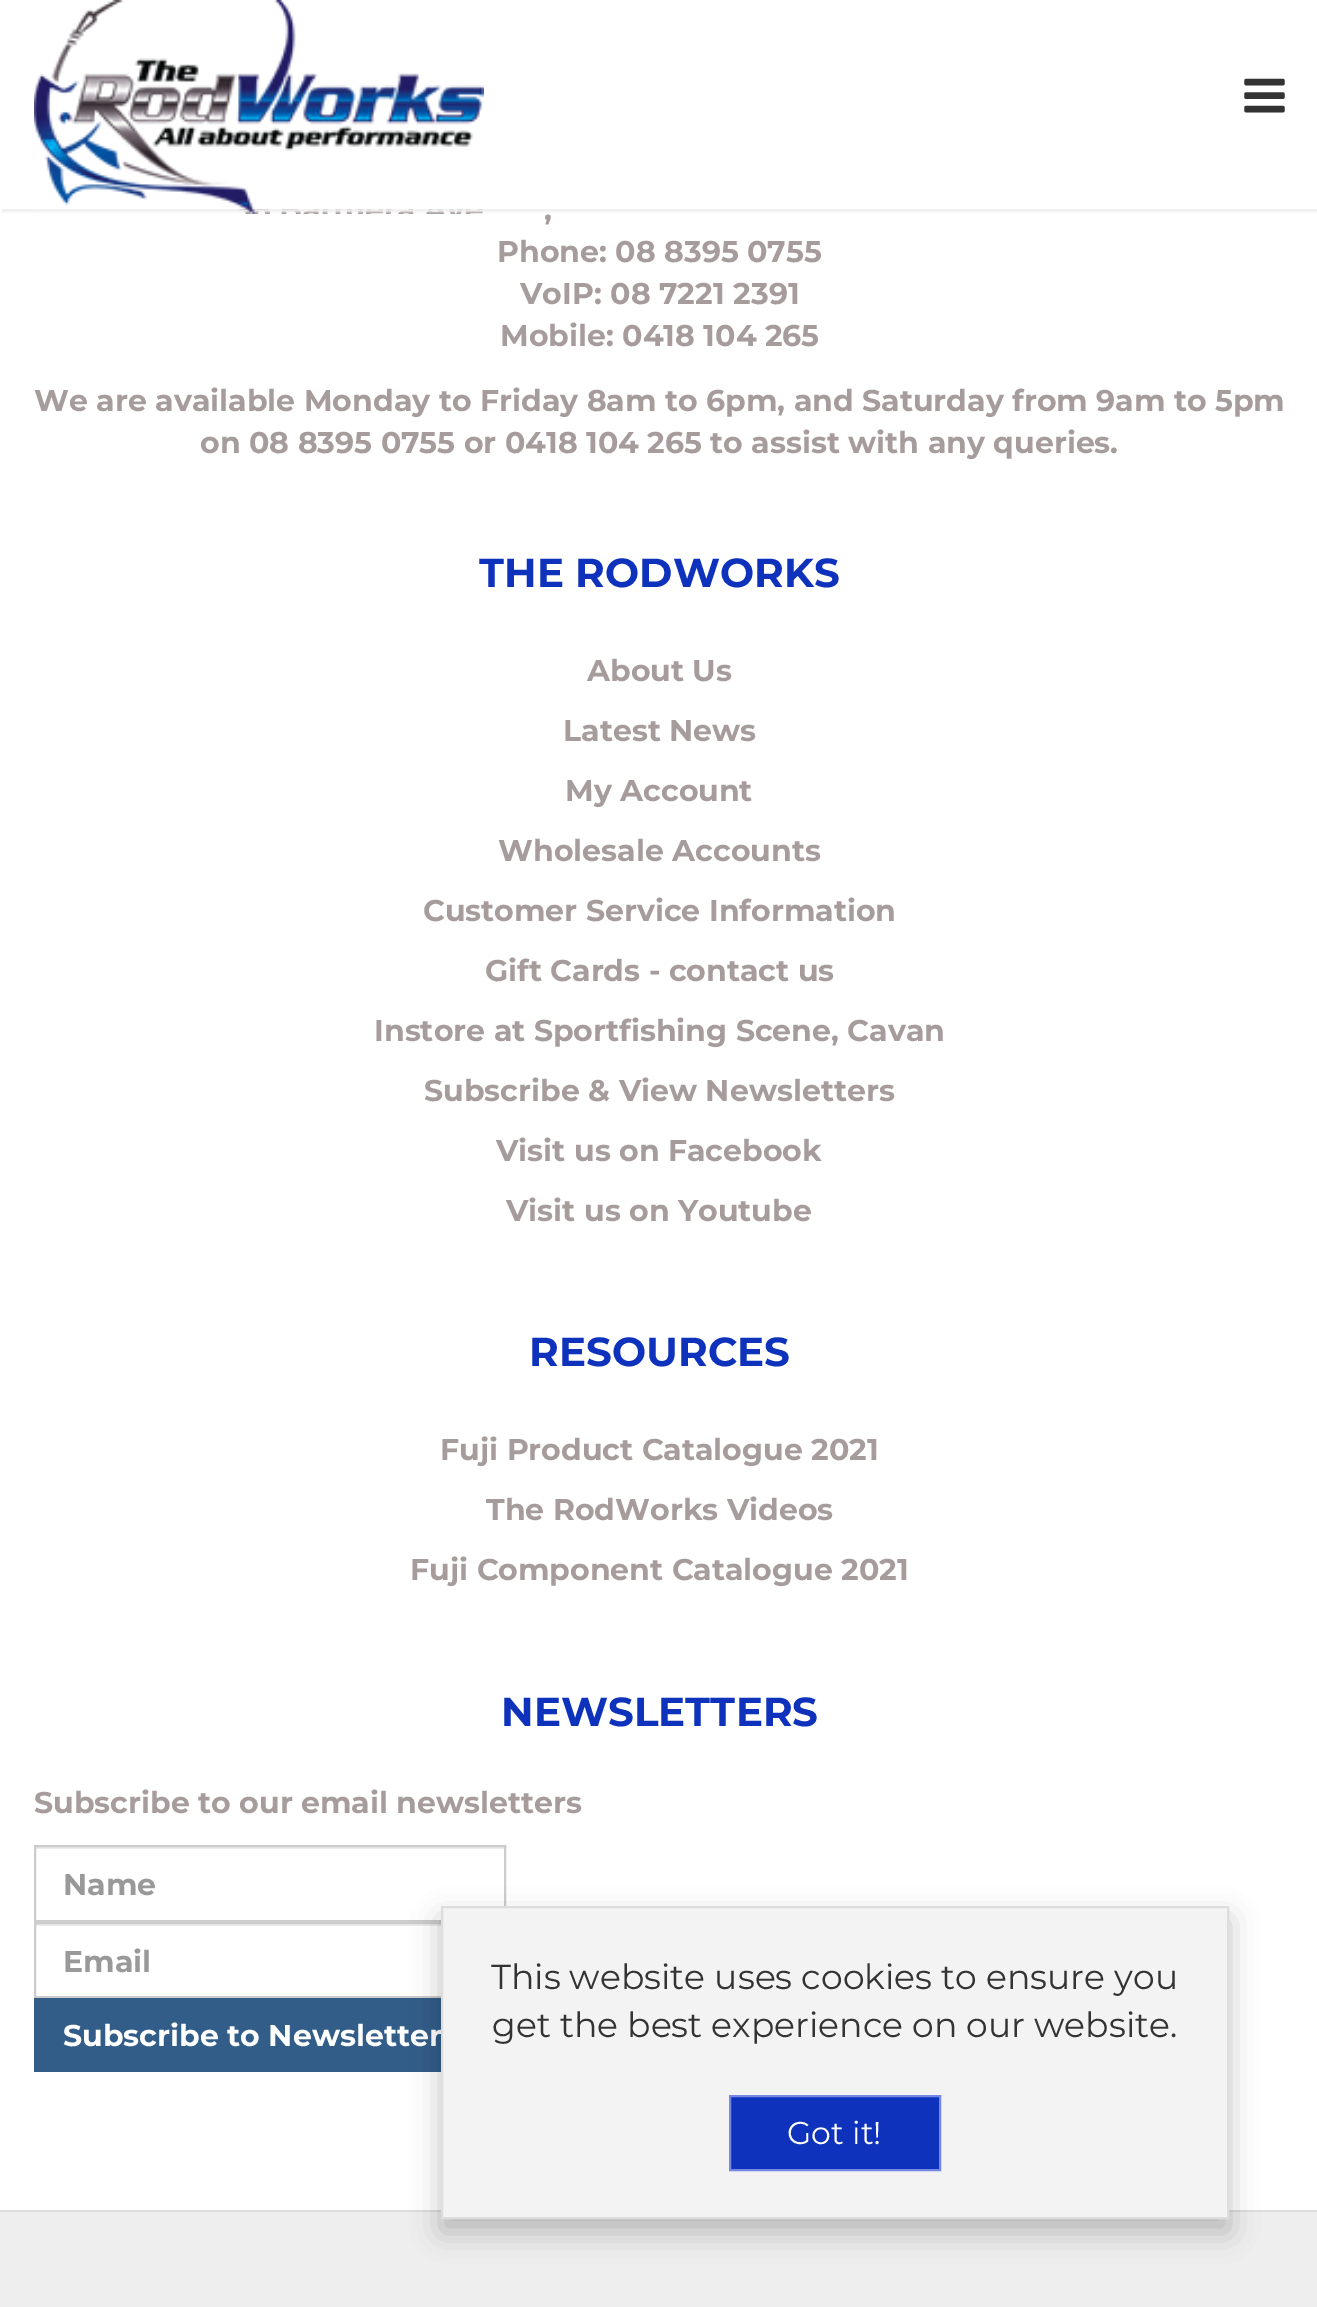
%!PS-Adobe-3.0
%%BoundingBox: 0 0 1317 2307
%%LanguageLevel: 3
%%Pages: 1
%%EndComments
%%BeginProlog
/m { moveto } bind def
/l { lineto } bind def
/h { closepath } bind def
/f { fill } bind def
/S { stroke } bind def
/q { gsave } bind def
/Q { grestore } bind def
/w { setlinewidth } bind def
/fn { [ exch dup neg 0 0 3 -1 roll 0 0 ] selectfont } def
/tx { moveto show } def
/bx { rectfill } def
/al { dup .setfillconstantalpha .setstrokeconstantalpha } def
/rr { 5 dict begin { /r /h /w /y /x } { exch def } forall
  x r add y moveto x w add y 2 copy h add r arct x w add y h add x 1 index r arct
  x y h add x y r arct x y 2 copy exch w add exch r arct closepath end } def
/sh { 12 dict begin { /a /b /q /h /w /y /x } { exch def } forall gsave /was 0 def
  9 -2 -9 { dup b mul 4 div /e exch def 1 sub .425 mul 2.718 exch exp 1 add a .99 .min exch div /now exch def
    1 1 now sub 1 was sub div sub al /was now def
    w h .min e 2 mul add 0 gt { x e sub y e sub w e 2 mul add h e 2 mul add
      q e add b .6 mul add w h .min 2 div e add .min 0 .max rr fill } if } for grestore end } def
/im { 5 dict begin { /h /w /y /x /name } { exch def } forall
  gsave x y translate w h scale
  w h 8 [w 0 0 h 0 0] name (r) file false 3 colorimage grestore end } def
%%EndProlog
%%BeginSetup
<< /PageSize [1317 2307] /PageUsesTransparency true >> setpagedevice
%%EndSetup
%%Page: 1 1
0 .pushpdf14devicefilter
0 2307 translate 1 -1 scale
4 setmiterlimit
1 setgray
0 0 1317 2307 bx
0.937 setgray
2 2 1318 210 0 1 1 sh
1 setgray
1 1 1316 208 bx
(image0.raw) 34 0 450 214 im
(image1.raw) 1244 78 41 35 im
/Montserrat-Bold 30 fn
0.651 0.612 0.612 setrgbcolor
(,) 544 220 tx
(Phone: 08 8395 0755) 497 262 tx
(VoIP: 08 7221 2391) 520 304 tx
(Mobile: 0418 104 265) 500 346 tx
(We are available Monday to Friday 8am to 6pm, and Saturday from 9am to 5pm) 34 411 tx
(on 08 8395 0755 or 0418 104 265 to assist with any queries.) 200 453 tx
/Montserrat-Bold 40.5 fn
0.059 0.196 0.741 setrgbcolor
(THE RODWORKS) 479 587 tx
/Montserrat-Bold 30 fn
0.651 0.612 0.612 setrgbcolor
(About Us) 587 681 tx
(Latest News) 563 741 tx
(My Account) 565 801 tx
(Wholesale Accounts) 498 861 tx
(Customer Service Information) 423 921 tx
(Gift Cards - contact us) 485 981 tx
(Instore at Sportfishing Scene, Cavan) 374 1041 tx
(Subscribe & View Newsletters) 424 1101 tx
(Visit us on Facebook) 496 1161 tx
(Visit us on Youtube) 506 1221 tx
/Montserrat-Bold 40.5 fn
0.059 0.196 0.741 setrgbcolor
(RESOURCES) 529 1366 tx
/Montserrat-Bold 30 fn
0.651 0.612 0.612 setrgbcolor
(Fuji Product Catalogue 2021) 440 1460 tx
(The RodWorks Videos) 486 1520 tx
(Fuji Component Catalogue 2021) 410 1580 tx
/Montserrat-Bold 40.5 fn
0.059 0.196 0.741 setrgbcolor
(NEWSLETTERS) 501 1726 tx
/Montserrat-Bold 30 fn
0.651 0.612 0.612 setrgbcolor
(Subscribe to our email newsletters) 34 1813 tx
0.925 setgray
36 1847 468 2 bx
0.8 setgray
2 w
35 1846 470 75 rectstroke
0.6 setgray
(Name) 63 1895 tx
0.925 setgray
36 1924 405 2 bx
0.8 setgray
35 1923 470 74 rectstroke
0.6 setgray
(Email) 63 1972 tx
0.196 0.365 0.533 setrgbcolor
34 1998 407 74 bx
1 setgray
(Subscribe to Newsletter) 63 2046 tx
0.933 setgray
0 2212 1317 95 bx
0.867 setgray
0 2210 1317 2 bx
0 setgray
441 1919 788 313 0 14.5 0.23 sh
0.953 setgray
442 1907 m 1228 1907 l 1228 2218 l 442 2218 l h q f Q
0.867 setgray
S
/Montserrat-Regular 34.6 fn
0.2 setgray
(This website uses cookies to ensure you) 491 1989 tx
(get the best experience on our website.) 492 2037 tx
0.059 0.196 0.741 setrgbcolor
730 2096 m 940 2096 l 940 2170 l 730 2170 l h q f Q
0.459 0.533 0.902 setrgbcolor
S
/Montserrat-Regular 31.5 fn
1 setgray
(Got it!) 787 2144 tx
.poppdf14devicefilter showpage
%%EOF
